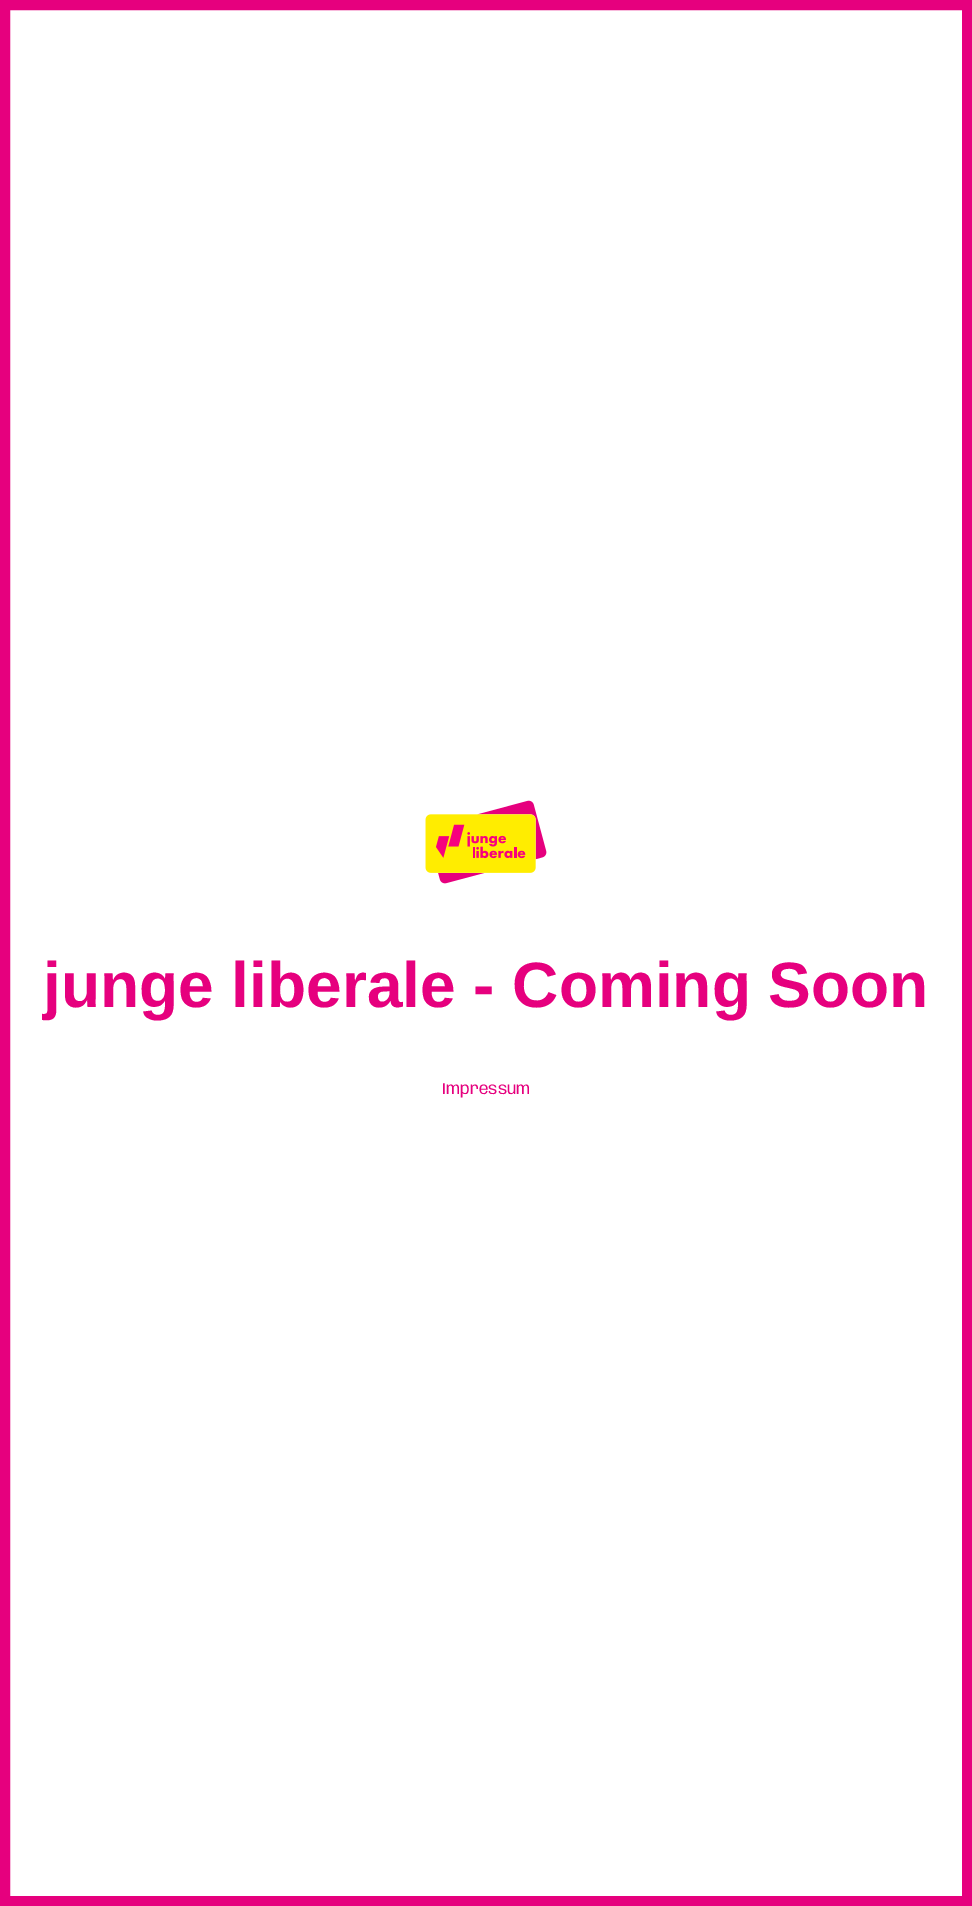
%!PS-Adobe-3.0
%%BoundingBox: 0 0 972 1906
%%LanguageLevel: 3
%%Pages: 1
%%EndComments
%%BeginProlog
/w { setlinewidth } bind def
/fn { [ exch dup neg 0 0 3 -1 roll 0 0 ] selectfont } def
/tx { moveto show } def
/bx { rectfill } def
/im { 5 dict begin { /h /w /y /x /name } { exch def } forall
  gsave x y translate w h scale
  w h 8 [w 0 0 h 0 0] name (r) file false 3 colorimage grestore end } def
%%EndProlog
%%BeginSetup
<< /PageSize [972 1906] >> setpagedevice
%%EndSetup
%%Page: 1 1
0 1906 translate 1 -1 scale
4 setmiterlimit
1 setgray
0 0 972 1906 bx
0.902 0 0.494 setrgbcolor
10 w
5 5 962 1896 rectstroke
(image0.raw) 425 800 122 84 im
/LiberationSans-Bold 64 fn
(junge liberale - Coming Soon) 43 1007 tx
/Anybody-Regular 16 fn
(Impressum) 442 1094 tx
showpage
%%EOF
